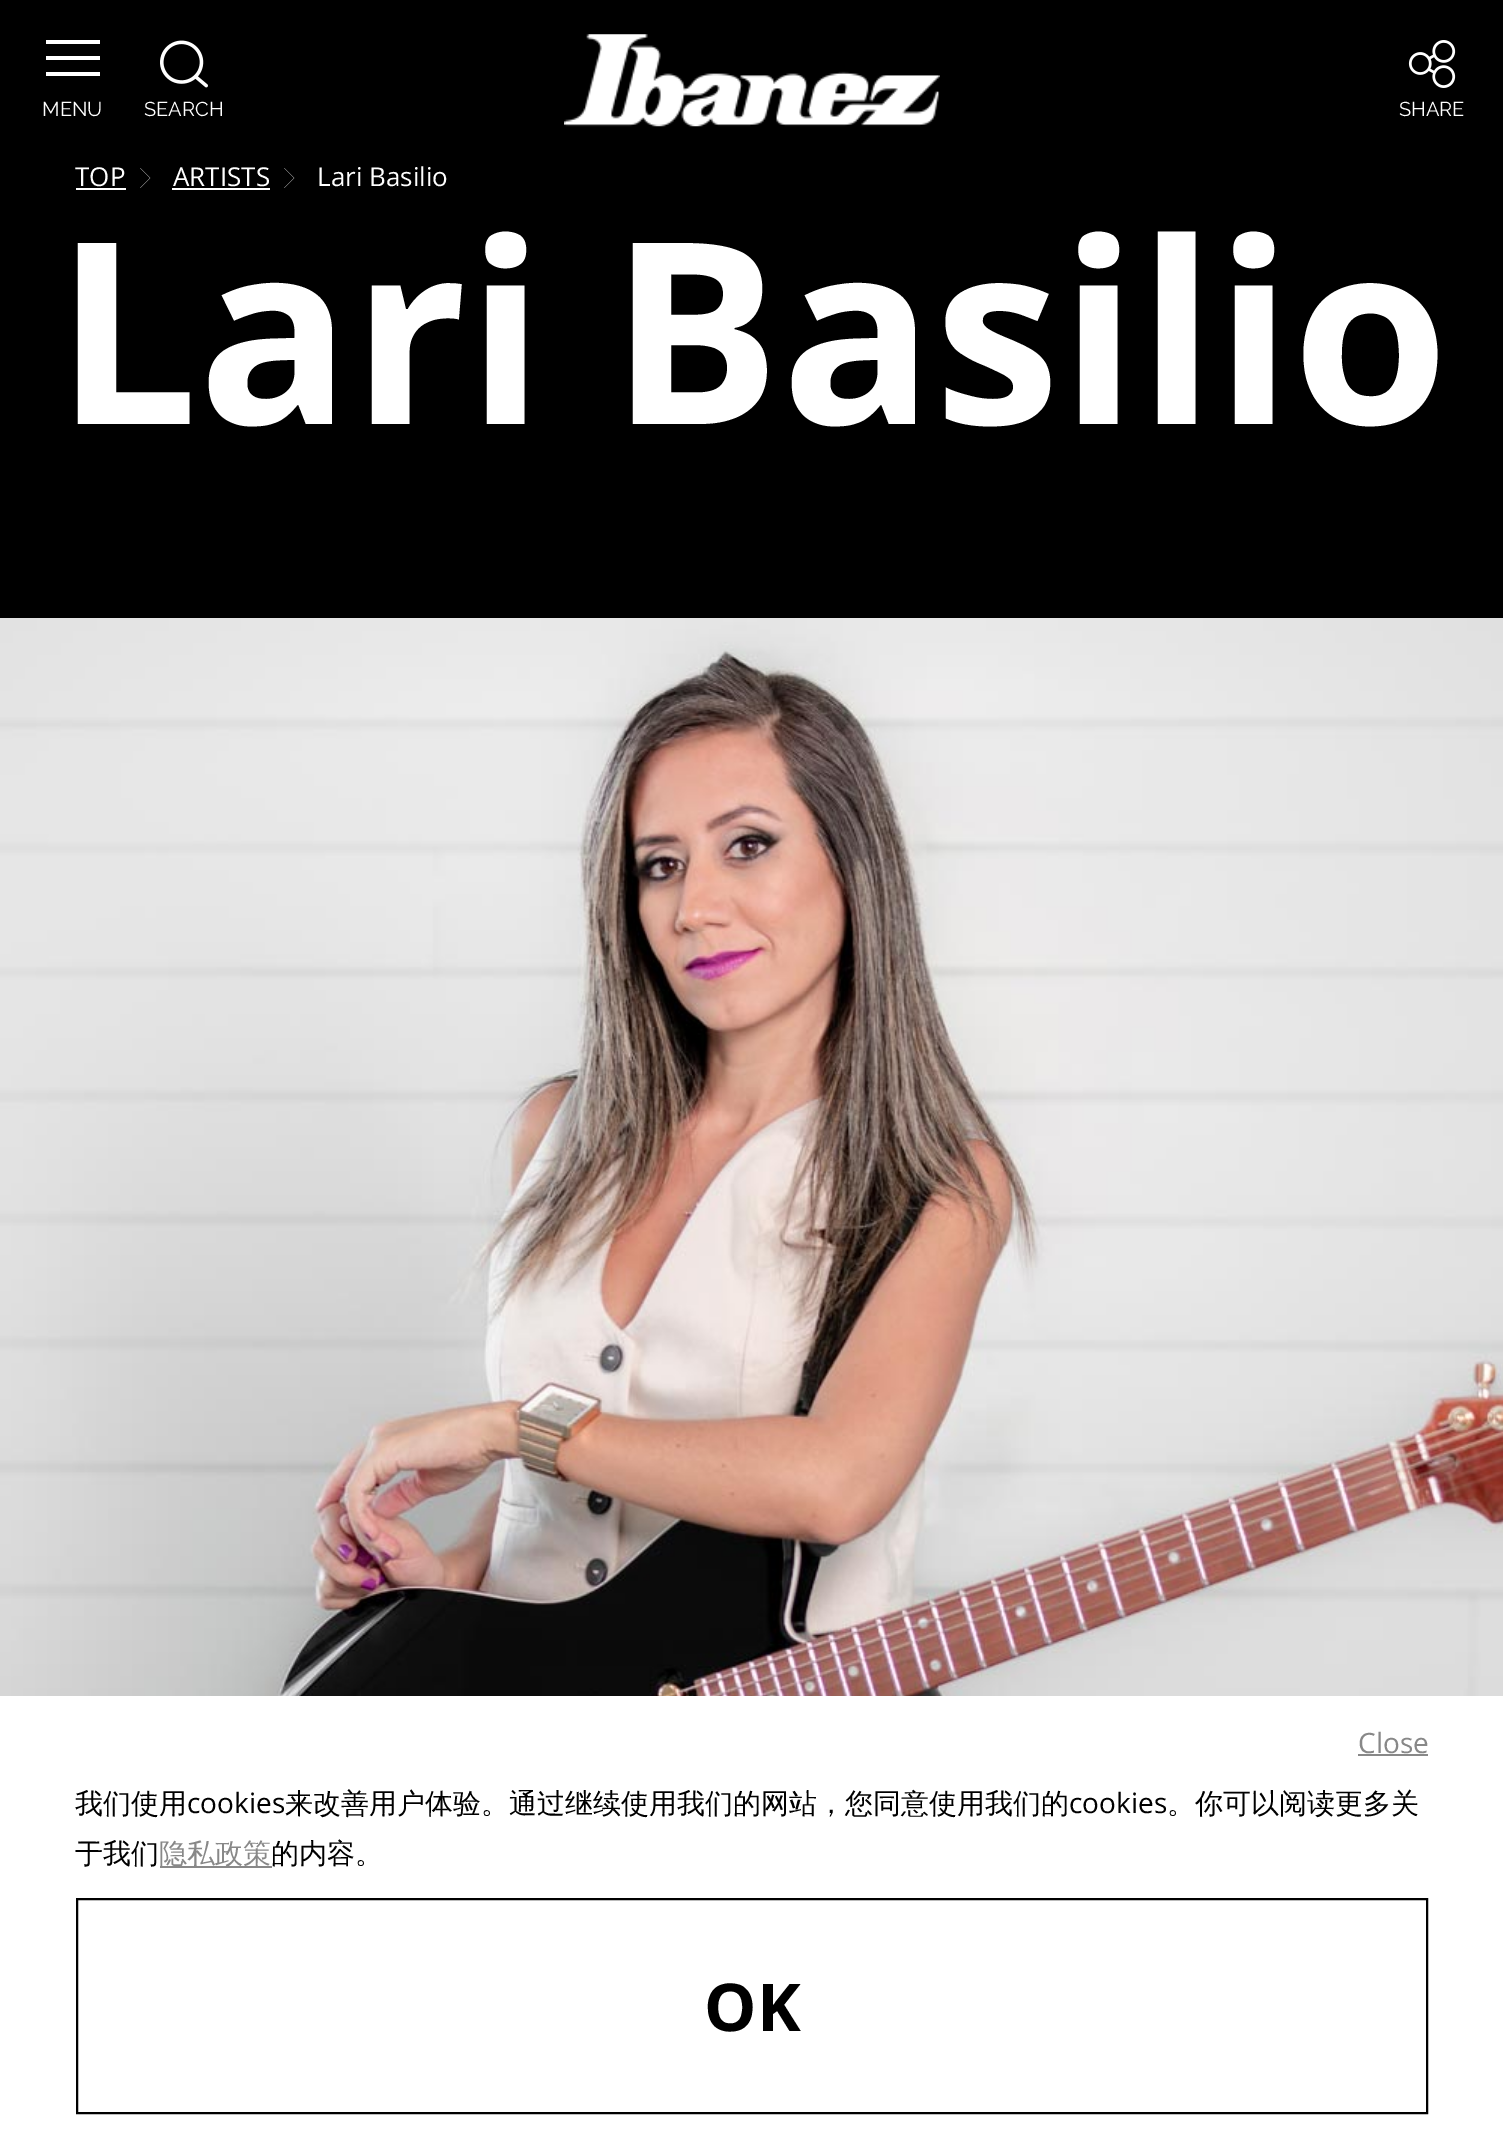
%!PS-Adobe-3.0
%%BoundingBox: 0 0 1503 2133
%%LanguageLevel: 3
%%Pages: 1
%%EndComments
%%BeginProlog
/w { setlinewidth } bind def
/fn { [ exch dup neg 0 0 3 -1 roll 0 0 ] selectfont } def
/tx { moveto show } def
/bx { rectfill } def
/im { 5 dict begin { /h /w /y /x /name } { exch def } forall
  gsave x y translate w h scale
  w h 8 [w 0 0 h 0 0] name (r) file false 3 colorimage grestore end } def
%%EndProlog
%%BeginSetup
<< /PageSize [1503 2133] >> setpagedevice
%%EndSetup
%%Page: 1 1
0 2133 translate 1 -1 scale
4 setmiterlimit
0 setgray
0 0 1503 2133 bx
1 setgray
46 40 54 4 bx
46 56 54 4 bx
46 72 54 4 bx
/Raleway-Regular 20 fn
(MENU) 42 116 tx
(image0.raw) 160 40 48 48 im
(SEARCH) 144 116 tx
(image1.raw) 564 34 376 93 im
(image2.raw) 1408 40 48 48 im
(SHARE) 1399 116 tx
0 1696 1503 437 bx
/OpenSans-Regular 28 fn
0.533 setgray
(Close) 1358 1753 tx
1358 1754 70 2 bx
/WenQuanYiZenHei-Medium 28 fn
0 setgray
(我们使用) 75 1813 tx
/OpenSans-Regular 28 fn
(cookies) 187 1813 tx
/WenQuanYiZenHei-Medium 28 fn
(来改善用户体验。通过继续使用我们的网站，您同意使用我们的) 285 1813 tx
/OpenSans-Regular 28 fn
(cookies) 1069 1813 tx
/WenQuanYiZenHei-Medium 28 fn
(。你可以阅读更多关) 1167 1813 tx
(于我们) 75 1863 tx
0.533 setgray
160 1866 112 2 bx
(隐私政策) 159 1863 tx
0 setgray
(的内容。) 271 1863 tx
2 w
77 1899 1350 214 rectstroke
/OpenSans-Bold 66 fn
(OK) 704 2031 tx
/OpenSans-Regular 26 fn
1 setgray
(TOP) 75 186 tx
76 188 50 2 bx
(image3.raw) 140 168 11 20 im
(ARTISTS) 173 186 tx
172 188 98 2 bx
(image3.raw) 284 168 11 20 im
(Lari Basilio) 317 186 tx
/OpenSans-Bold 253.75 fn
(Lari Basilio) 55 424 tx
(image4.raw) 0 618 1503 1078 im
showpage
%%EOF
